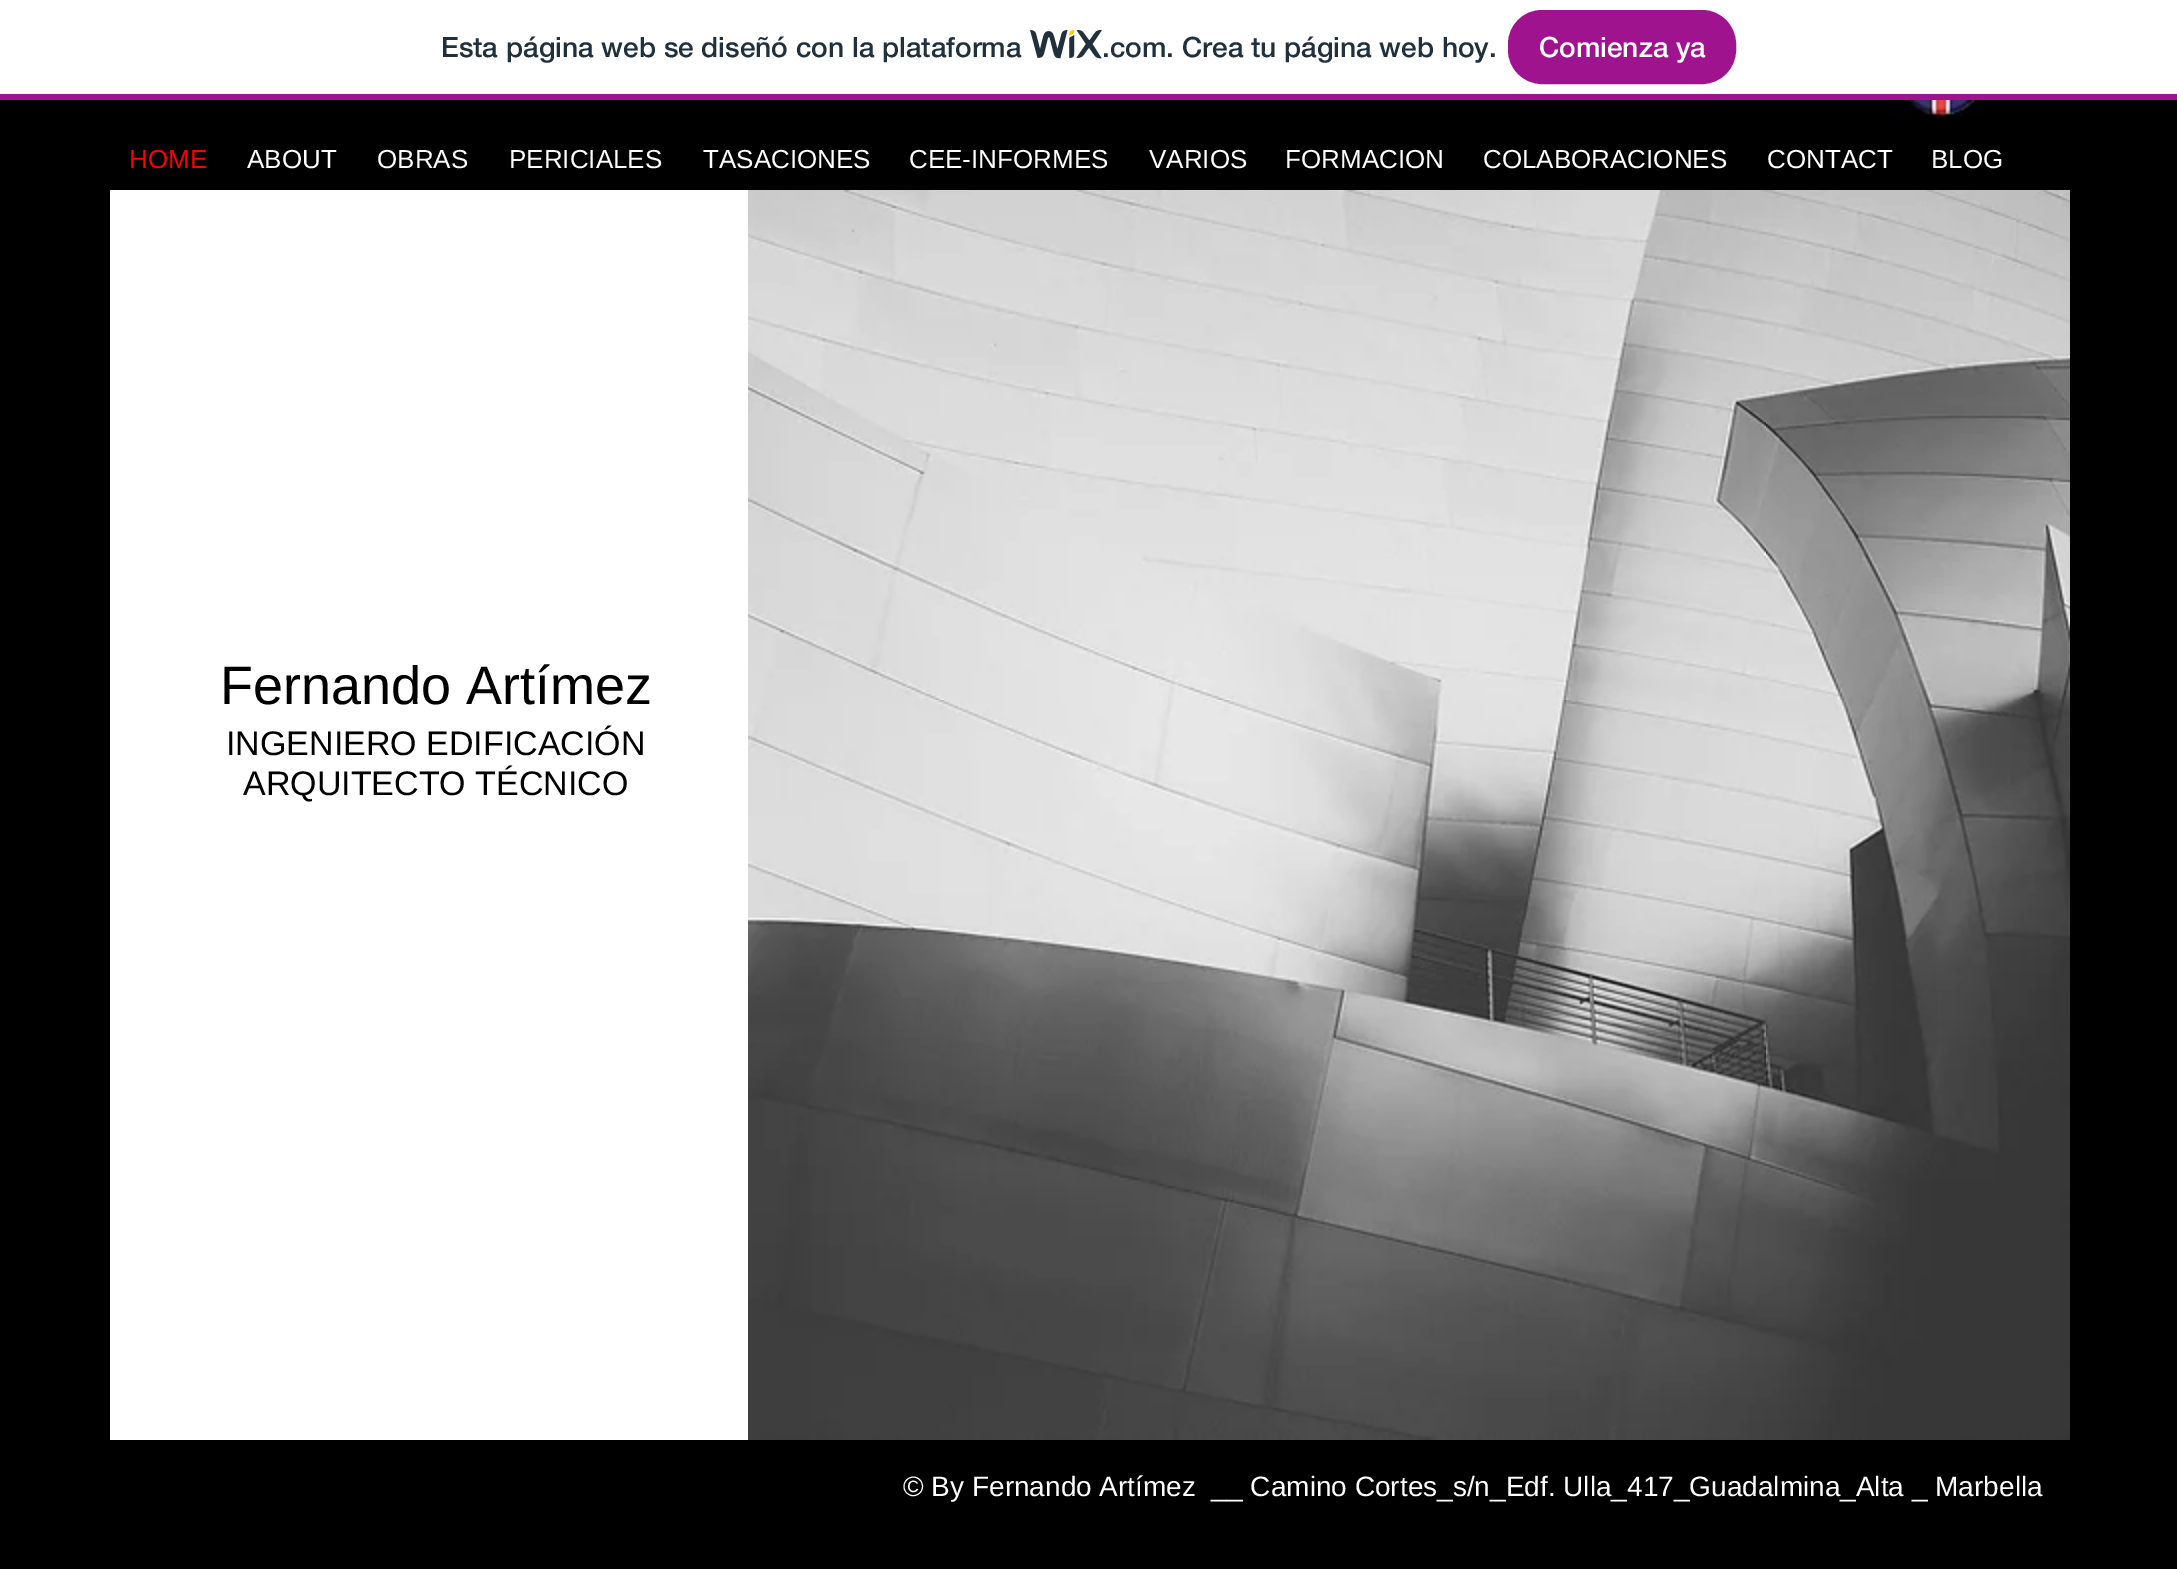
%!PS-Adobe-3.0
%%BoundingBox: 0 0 2177 1569
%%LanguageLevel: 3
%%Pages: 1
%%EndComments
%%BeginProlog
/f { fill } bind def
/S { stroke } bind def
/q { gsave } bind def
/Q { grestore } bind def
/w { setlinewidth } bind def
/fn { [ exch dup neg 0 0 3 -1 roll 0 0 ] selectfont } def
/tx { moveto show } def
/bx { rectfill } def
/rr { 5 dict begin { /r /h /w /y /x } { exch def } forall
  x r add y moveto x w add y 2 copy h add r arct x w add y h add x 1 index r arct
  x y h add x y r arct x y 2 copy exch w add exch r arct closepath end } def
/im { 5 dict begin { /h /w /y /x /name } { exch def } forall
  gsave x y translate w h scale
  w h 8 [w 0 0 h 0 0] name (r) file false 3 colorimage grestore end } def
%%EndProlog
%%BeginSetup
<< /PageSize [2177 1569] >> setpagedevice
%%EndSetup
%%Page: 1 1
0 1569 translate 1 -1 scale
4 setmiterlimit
0 setgray
0 0 2177 1569 bx
1 setgray
0 0 2177 94 bx
0.627 0.075 0.557 setrgbcolor
0 94 2177 6 bx
/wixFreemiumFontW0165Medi-Medium 28 fn
0.125 0.188 0.235 setrgbcolor
(Esta página web se diseñó con la plataforma) 441 57 tx
(image0.raw) 1030 30 72 29 im
(.com. Crea tu página web hoy.) 1102 57 tx
0.627 0.075 0.557 setrgbcolor
1509 11 226 72 33 rr q f Q
2 w
S
1 setgray
(Comienza ya) 1539 57 tx
(image1.raw) 1890 100 99 19 im
/LiberationSans-Regular 26 fn
1 0 0 setrgbcolor
(HOME) 129 168 tx
1 setgray
(ABOUT) 247 168 tx
(OBRAS) 377 168 tx
(PERICIALES) 509 168 tx
(TASACIONES) 703 168 tx
(CEE-INFORMES) 909 168 tx
(VARIOS) 1149 168 tx
(FORMACION) 1285 168 tx
(COLABORACIONES) 1483 168 tx
(CONTACT) 1767 168 tx
(BLOG) 1931 168 tx
110 190 638 1250 bx
/LiberationSans-Regular 54 fn
0 setgray
(Fernando Artímez) 220 704 tx
/LiberationSans-Regular 34 fn
(INGENIERO EDIFICACIÓN) 226 755 tx
(ARQUITECTO TÉCNICO) 243 795 tx
(image2.raw) 748 190 1322 1250 im
/LiberationSans-Regular 28 fn
1 setgray
(© By Fernando Artímez  __ Camino Cortes_s/n_Edf. Ulla_417_Guadalmina_Alta _ Marbella) 903 1496 tx
showpage
%%EOF
